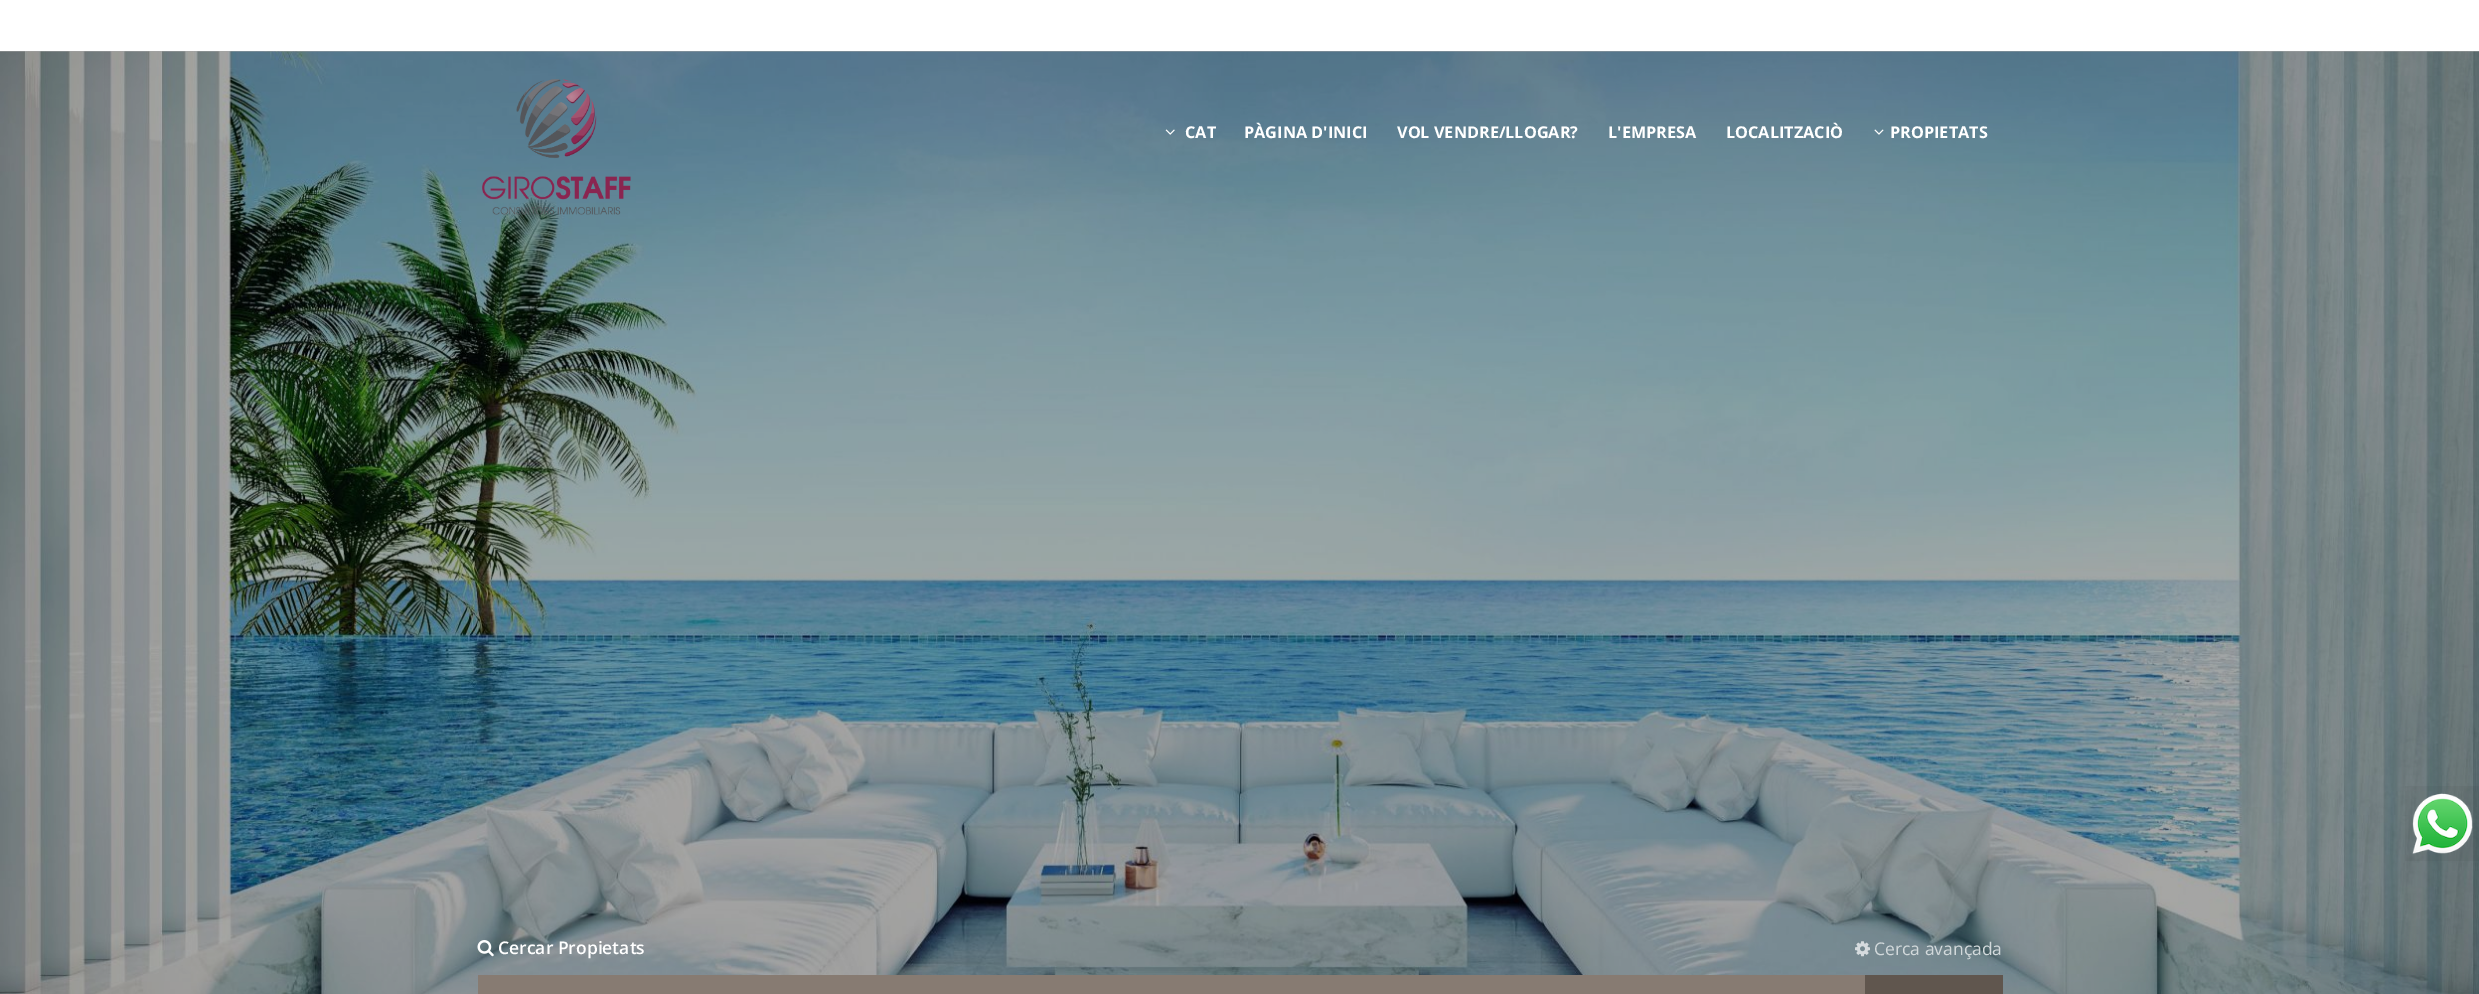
%!PS-Adobe-3.0
%%BoundingBox: 0 0 2479 994
%%LanguageLevel: 3
%%Pages: 1
%%EndComments
%%BeginProlog
/fn { [ exch dup neg 0 0 3 -1 roll 0 0 ] selectfont } def
/tx { moveto show } def
/bx { rectfill } def
/al { dup .setfillconstantalpha .setstrokeconstantalpha } def
/im { 5 dict begin { /h /w /y /x /name } { exch def } forall
  gsave x y translate w h scale
  w h 8 [w 0 0 h 0 0] name (r) file false 3 colorimage grestore end } def
%%EndProlog
%%BeginSetup
<< /PageSize [2479 994] /PageUsesTransparency true >> setpagedevice
%%EndSetup
%%Page: 1 1
0 .pushpdf14devicefilter
0 994 translate 1 -1 scale
4 setmiterlimit
1 setgray
0 0 2479 994 bx
0.651 setgray
0 51 2479 1 bx
(image0.raw) 0 51 2479 943 im
(image1.raw) 482 79 149 136 im
(image2.raw) 1165 129 10 6 im
/OpenSans-Bold 16.25 fn
1 setgray
(CAT) 1185 138 tx
(PÀGINA D'INICI) 1244 138 tx
(VOL VENDRE/LLOGAR?) 1397 138 tx
(L'EMPRESA) 1608 138 tx
(LOCALITZACIÒ) 1726 138 tx
(image3.raw) 1874 129 10 6 im
(PROPIETATS) 1890 138 tx
0.04 al
0 setgray
2405 786 74 75 bx
1 al
(image4.raw) 2412 793 61 61 im
0.529 0.482 0.447 setrgbcolor
478 975 1387 19 bx
(image5.raw) 477 940 17 17 im
/OpenSans-SemiBold 17.5 fn
1 setgray
(Cercar Propietats) 498 954 tx
(image6.raw) 1855 941 15 16 im
/OpenSans-Regular 17.5 fn
0.824 0.851 0.859 setrgbcolor
(Cerca avançada) 1874 955 tx
0.376 0.337 0.306 setrgbcolor
1865 975 138 19 bx
.poppdf14devicefilter showpage
%%EOF
